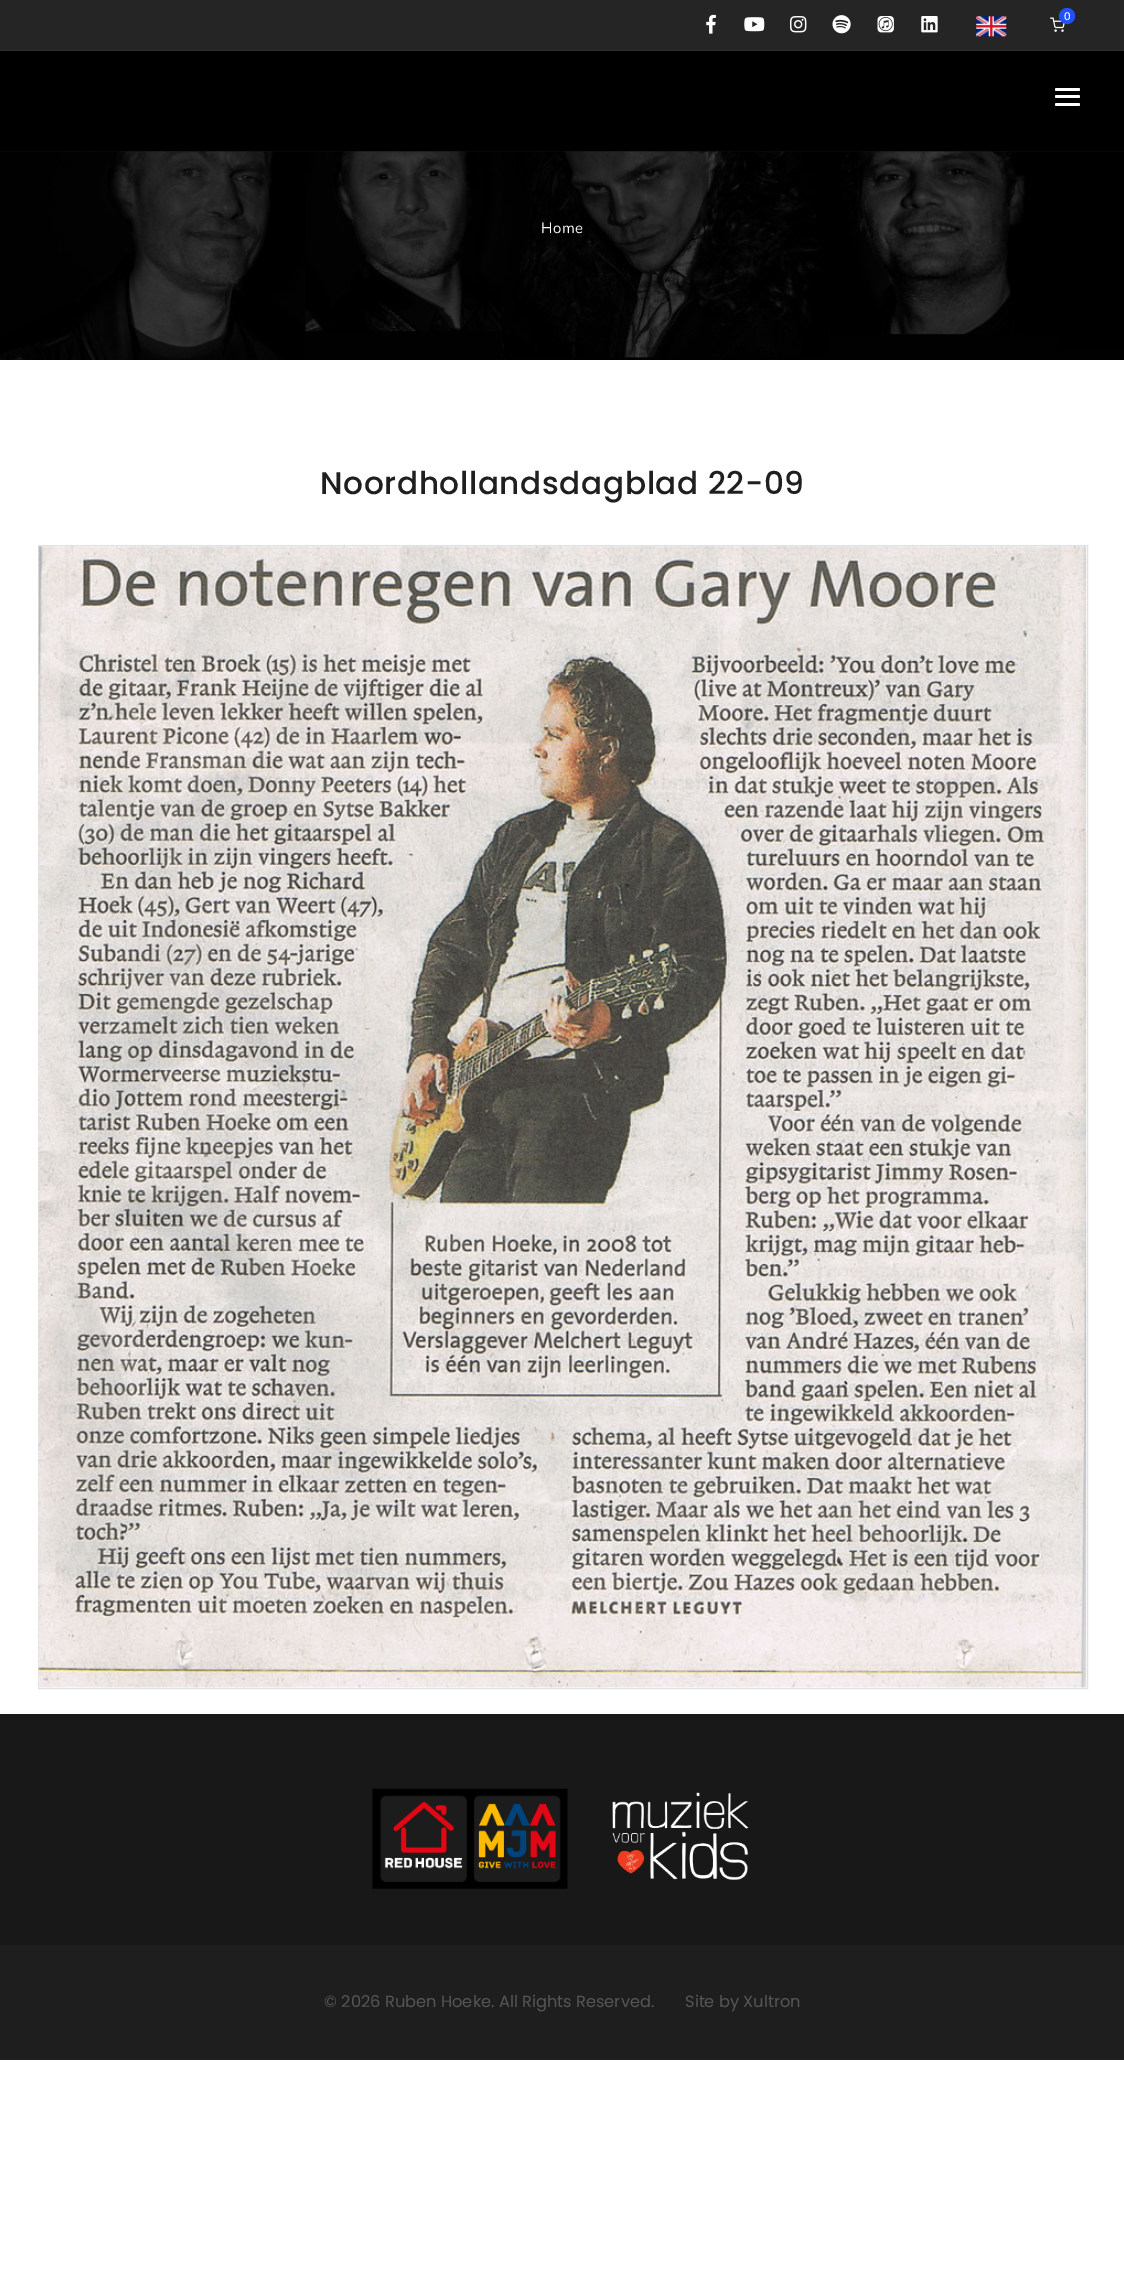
%!PS-Adobe-3.0
%%BoundingBox: 0 0 1124 2290
%%LanguageLevel: 3
%%Pages: 1
%%EndComments
%%BeginProlog
/m { moveto } bind def
/f { fill } bind def
/fn { [ exch dup neg 0 0 3 -1 roll 0 0 ] selectfont } def
/tx { moveto show } def
/bx { rectfill } def
/ci { newpath 0 360 arc closepath } def
/rr { 5 dict begin { /r /h /w /y /x } { exch def } forall
  x r add y moveto x w add y 2 copy h add r arct x w add y h add x 1 index r arct
  x y h add x y r arct x y 2 copy exch w add exch r arct closepath end } def
/im { 5 dict begin { /h /w /y /x /name } { exch def } forall
  gsave x y translate w h scale
  w h 8 [w 0 0 h 0 0] name (r) file false 3 colorimage grestore end } def
%%EndProlog
%%BeginSetup
<< /PageSize [1124 2290] >> setpagedevice
%%EndSetup
%%Page: 1 1
0 2290 translate 1 -1 scale
4 setmiterlimit
1 setgray
0 0 1124 2290 bx
0.145 setgray
0 0 1124 50 bx
0.184 setgray
0 50 1124 1 bx
(image0.raw) 706 14 10 20 im
(image1.raw) 744 17 21 15 im
(image2.raw) 790 16 17 17 im
(image3.raw) 832 15 19 19 im
(image4.raw) 877 16 17 17 im
(image5.raw) 921 16 17 17 im
(image6.raw) 976 16 31 21 im
(image7.raw) 1050 17 15 15 im
0.133 0.314 0.988 setrgbcolor
1067 16 8 ci f
/Nunito-SemiBold 11 fn
1 setgray
(0) 1064 20 tx
0 setgray
0 51 1124 100 bx
1 setgray
1055 95 25 3 1.5 rr f
1055 88 25 3 1.5 rr f
1055 103 25 3 1.5 rr f
0.059 setgray
0 151 1124 1 bx
(image8.raw) 0 151 1124 209 im
/Nunito-Regular 15 fn
1 setgray
541 233 m 0.6 0 (Home) ashow
/Poppins-Medium 31.25 fn
0.122 setgray
320 494 m 0.6 0 (Noordhollandsdagblad 22-09) ashow
0.871 0.886 0.902 setrgbcolor
38.5 545.5 1049 1143 rectstroke
(image9.raw) 38 546 1049 1142 im
0.094 setgray
0 1714 1124 231 bx
(image10.raw) 372 1788 196 101 im
(image11.raw) 612 1792 137 88 im
0.118 setgray
0 1945 1124 115 bx
/Poppins-Regular 16.25 fn
0.337 setgray
(© 2026 Ruben Hoeke. All Rights Reserved.) 324 2007 tx
(Site by Xultron) 685 2007 tx
showpage
%%EOF
